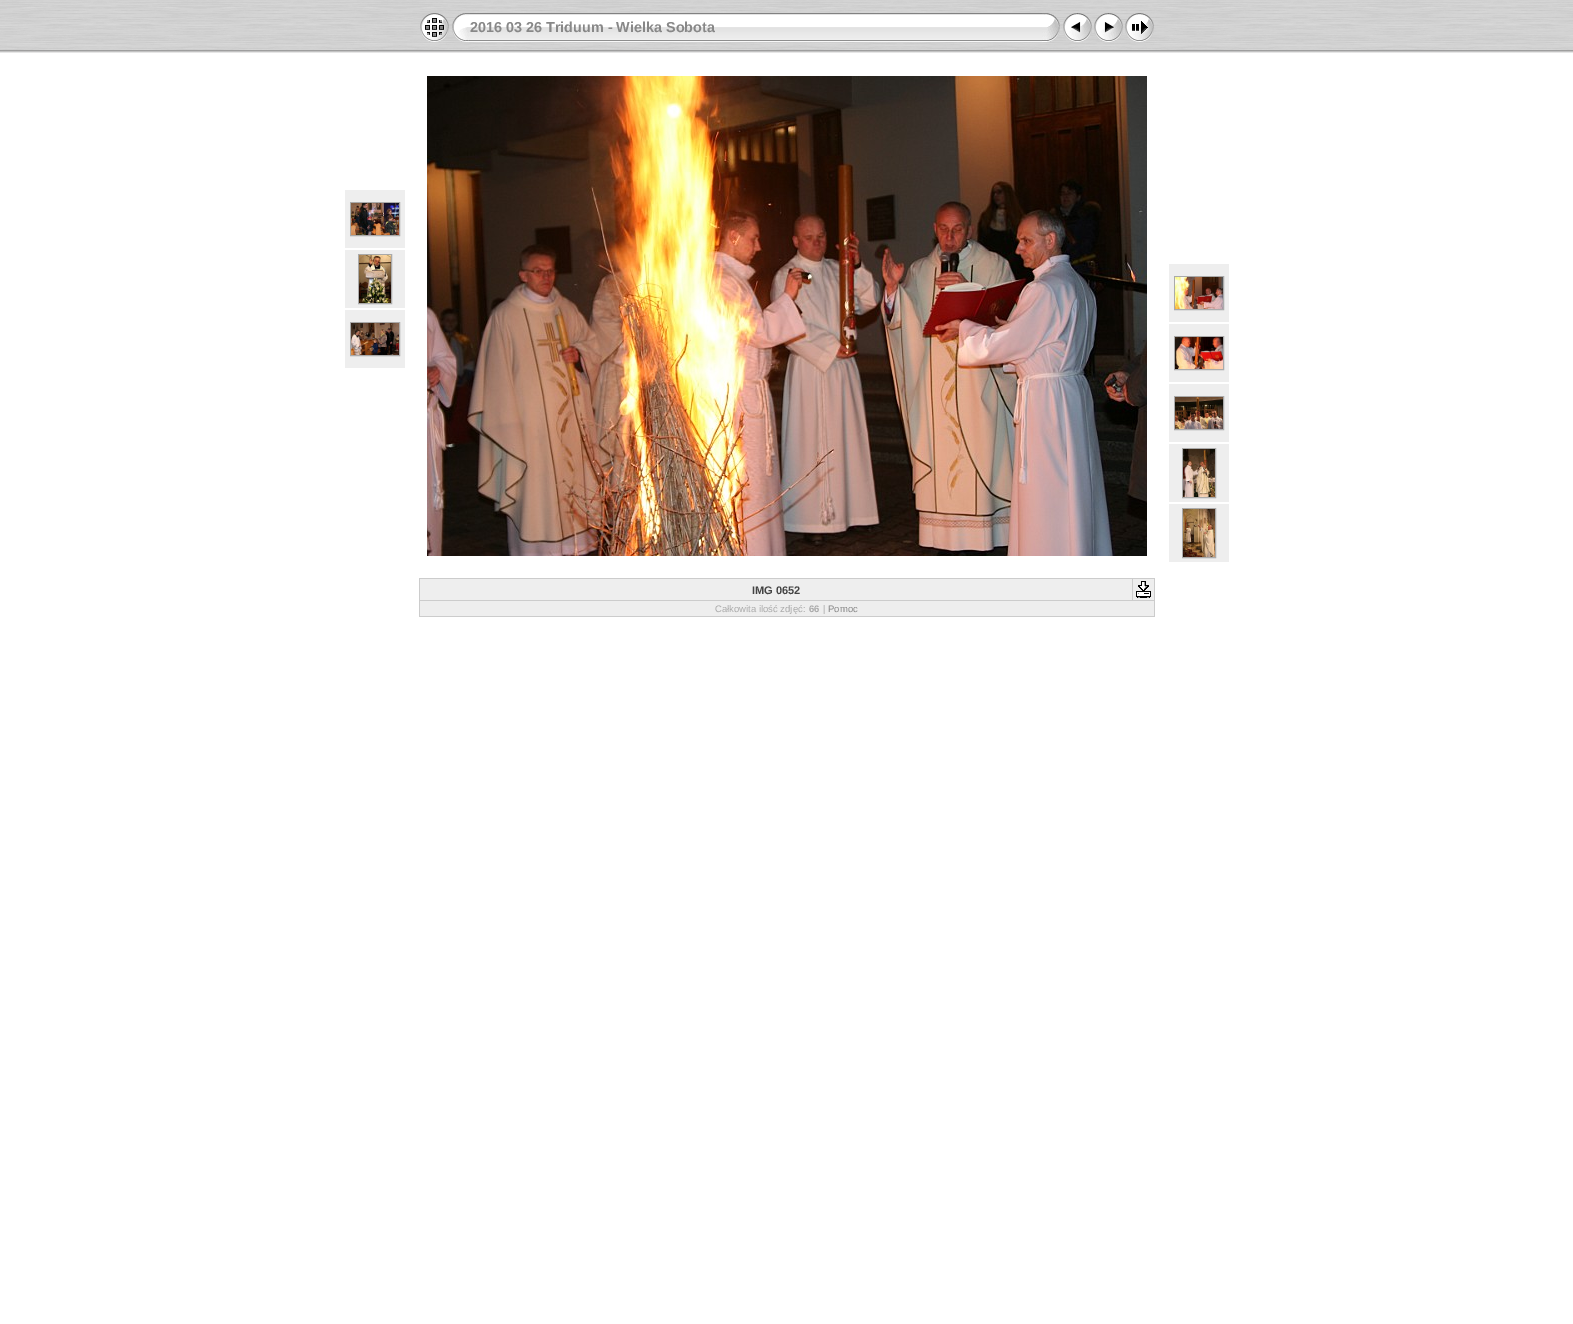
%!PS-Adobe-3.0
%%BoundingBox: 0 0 1573 1324
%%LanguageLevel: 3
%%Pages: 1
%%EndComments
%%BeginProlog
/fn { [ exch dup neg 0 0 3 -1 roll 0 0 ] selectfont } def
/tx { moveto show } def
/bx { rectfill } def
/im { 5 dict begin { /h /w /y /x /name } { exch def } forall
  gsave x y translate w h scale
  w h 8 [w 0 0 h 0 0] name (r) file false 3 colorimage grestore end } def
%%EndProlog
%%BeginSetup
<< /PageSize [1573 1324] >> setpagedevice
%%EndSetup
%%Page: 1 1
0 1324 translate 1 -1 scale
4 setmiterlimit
1 setgray
0 0 1573 1324 bx
(image0.raw) 0 0 1573 53 im
(image1.raw) 420 13 29 29 im
(image2.raw) 452 13 18 29 im
(image3.raw) 470 13 572 29 im
/LiberationSans-Bold 14.4 fn
0.533 setgray
(2016 03 26 Triduum - Wielka Sobota) 470 32 tx
(image4.raw) 1042 13 18 29 im
(image5.raw) 1063 13 29 29 im
(image6.raw) 1094 13 29 29 im
(image7.raw) 1125 13 29 29 im
0.933 setgray
345 190 60 58 bx
0.667 setgray
350.5 202.5 49 33 rectstroke
(image8.raw) 351 203 48 32 im
0.933 setgray
345 250 60 58 bx
0.667 setgray
358.5 254.5 33 49 rectstroke
(image9.raw) 359 255 32 48 im
0.933 setgray
345 310 60 58 bx
0.667 setgray
350.5 322.5 49 33 rectstroke
(image10.raw) 351 323 48 32 im
(image11.raw) 427 76 720 480 im
0.933 setgray
1169 264 60 58 bx
0.667 setgray
1174.5 276.5 49 33 rectstroke
(image12.raw) 1175 277 48 32 im
0.933 setgray
1169 324 60 58 bx
0.667 setgray
1174.5 336.5 49 33 rectstroke
(image13.raw) 1175 337 48 32 im
0.933 setgray
1169 384 60 58 bx
0.667 setgray
1174.5 396.5 49 33 rectstroke
(image14.raw) 1175 397 48 32 im
0.933 setgray
1169 444 60 58 bx
0.667 setgray
1182.5 448.5 33 49 rectstroke
(image15.raw) 1183 449 32 48 im
0.933 setgray
1169 504 60 58 bx
0.667 setgray
1182.5 508.5 33 49 rectstroke
(image16.raw) 1183 509 32 48 im
0.933 setgray
420 579 734 37 bx
0.8 setgray
419 578 736 1 bx
1154 578 1 39 bx
419 616 736 1 bx
419 578 1 39 bx
/LiberationSans-Bold 11 fn
0.267 setgray
(IMG 0652) 752 594 tx
0.8 setgray
419 600 736 1 bx
1132 578 1 23 bx
(image17.raw) 1136 581 15 17 im
/LiberationSans-Regular 9.5 fn
0.667 setgray
(Całkowita ilość zdjęć:) 715 612 tx
/LiberationSans-Bold 9.5 fn
(66) 809 612 tx
/LiberationSans-Regular 9.5 fn
(|) 823 612 tx
0.533 setgray
(Pomoc) 828 612 tx
showpage
%%EOF
